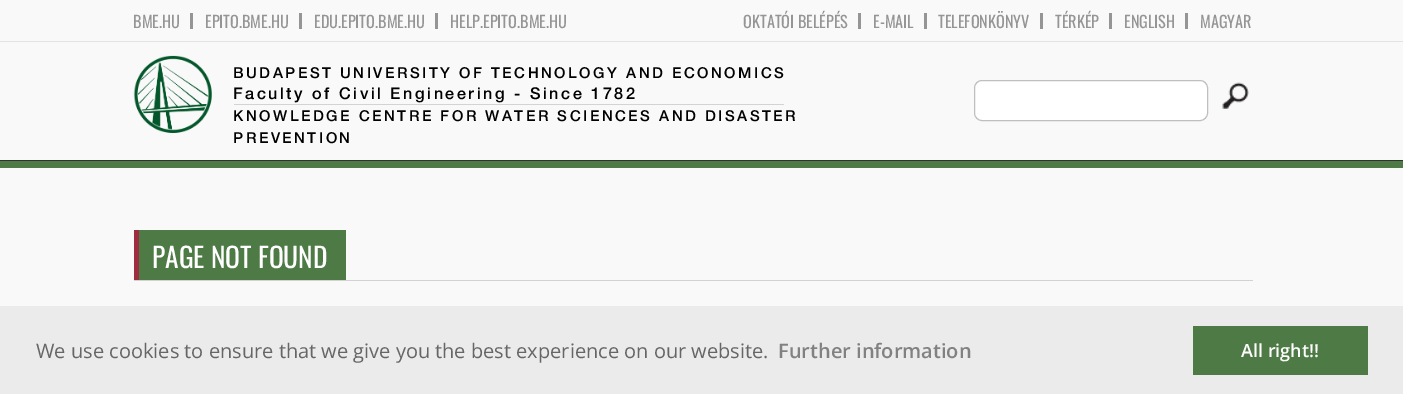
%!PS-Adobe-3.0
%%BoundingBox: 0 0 1403 394
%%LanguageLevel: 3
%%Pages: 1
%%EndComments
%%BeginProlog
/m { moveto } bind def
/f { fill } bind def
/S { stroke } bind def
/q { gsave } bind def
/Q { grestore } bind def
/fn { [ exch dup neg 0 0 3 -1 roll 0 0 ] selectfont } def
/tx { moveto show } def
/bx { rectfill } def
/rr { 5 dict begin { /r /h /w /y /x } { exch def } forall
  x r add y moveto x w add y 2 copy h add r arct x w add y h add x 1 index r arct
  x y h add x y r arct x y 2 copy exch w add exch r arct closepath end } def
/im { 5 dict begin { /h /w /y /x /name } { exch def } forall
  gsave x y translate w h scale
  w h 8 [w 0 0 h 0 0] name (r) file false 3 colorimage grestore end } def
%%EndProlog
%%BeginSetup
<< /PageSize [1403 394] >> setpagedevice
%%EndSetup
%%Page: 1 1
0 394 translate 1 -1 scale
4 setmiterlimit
0.976 0.976 0.98 setrgbcolor
0 0 1403 394 bx
0.894 0.89 0.89 setrgbcolor
0 41 1403 1 bx
/Oswald-Regular 16.25 fn
0.584 setgray
(BME.HU) 133 28 tx
190 13 3 16 bx
(EPITO.BME.HU) 205 28 tx
299 13 3 16 bx
(EDU.EPITO.BME.HU) 314 28 tx
435 13 3 16 bx
(HELP.EPITO.BME.HU) 450 28 tx
(OKTATÓI BELÉPÉS) 743 28 tx
858 13 3 16 bx
(E-MAIL) 873 28 tx
924 13 3 16 bx
(TELEFONKÖNYV) 938 28 tx
1040 13 3 16 bx
(TÉRKÉP) 1055 28 tx
1109 13 3 16 bx
(ENGLISH) 1124 28 tx
1185 13 3 16 bx
(MAGYAR) 1200 28 tx
(image0.raw) 133 55 79 78 im
/HelveticaNeue-Medium 15 fn
0 setgray
233 78 m 2.5 0 (BUDAPEST UNIVERSITY OF TECHNOLOGY AND ECONOMICS) ashow
/HelveticaNeue-Medium 16.25 fn
233 99 m 2.5 0 (Faculty of Civil Engineering - Since 1782) ashow
0.827 setgray
234 104 550 1 bx
/HelveticaNeue-Medium 15 fn
0 setgray
233 121 m 2.5 0 (KNOWLEDGE CENTRE FOR WATER SCIENCES AND DISASTER) ashow
233 143 m 2.5 0 (PREVENTION) ashow
1 setgray
974.5 80.5 233 40 7.5 rr q f Q
0.749 setgray
S
(image1.raw) 1222 82 27 27 im
0.192 setgray
0 160 1403 1 bx
0.306 0.478 0.271 setrgbcolor
0 161 1403 7 bx
0.824 setgray
134 280 1119 1 bx
0.306 0.478 0.271 setrgbcolor
139 230 207 50 bx
0.62 0.176 0.251 setrgbcolor
134 230 5 50 bx
/Oswald-Regular 27.5 fn
1 setgray
(PAGE NOT FOUND) 152 268 tx
0.922 setgray
0 306 1403 88 bx
/OpenSans-Regular 20 fn
0.4 setgray
(We use cookies to ensure that we give you the best experience on our website.) 36 358 tx
/OpenSans-SemiBold 20 fn
0.506 setgray
(Further information) 778 358 tx
0.306 0.478 0.271 setrgbcolor
1193 326 175 49 bx
/OpenSans-SemiBold 18 fn
1 setgray
(All right!!) 1241 357 tx
showpage
%%EOF
